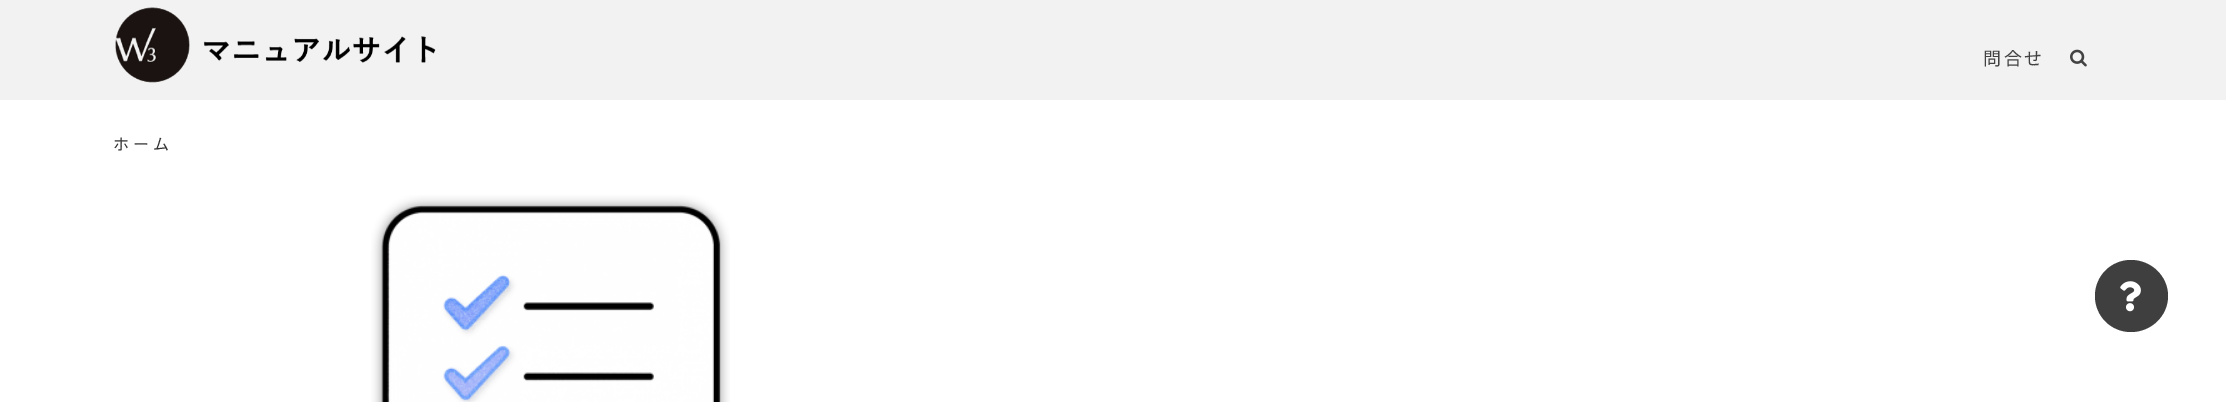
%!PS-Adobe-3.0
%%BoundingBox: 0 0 2226 402
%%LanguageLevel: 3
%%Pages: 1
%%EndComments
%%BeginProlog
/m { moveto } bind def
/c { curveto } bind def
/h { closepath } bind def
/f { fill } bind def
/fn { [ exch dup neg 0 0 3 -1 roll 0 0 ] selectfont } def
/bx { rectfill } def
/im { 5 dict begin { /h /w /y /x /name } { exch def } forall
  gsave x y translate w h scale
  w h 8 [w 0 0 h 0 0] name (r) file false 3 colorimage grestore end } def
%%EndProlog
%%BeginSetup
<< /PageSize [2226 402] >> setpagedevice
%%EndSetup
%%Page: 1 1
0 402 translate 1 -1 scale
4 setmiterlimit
1 setgray
0 0 2226 402 bx
0.949 setgray
0 0 2226 100 bx
(image0.raw) 115 7 321 76 im
/NotoSansJP-Regular 18 fn
0.259 setgray
1983 65 m 2.5 0 (問合せ) ashow
(image1.raw) 2070 49 17 18 im
/NotoSansJP-Regular 16 fn
0.2 setgray
113 150 m 4 0 (ホーム) ashow
(image2.raw) 371 195 359 207 im
0.247 setgray
2131 260 m 2151 260 2168 276 2168 296 c 2168 316 2151 332 2131 332 c 2111 332 2095 316 2095 296 c 2095 276 2111 260 2131 260 c h f
(image3.raw) 2120 281 21 31 im
showpage
%%EOF
